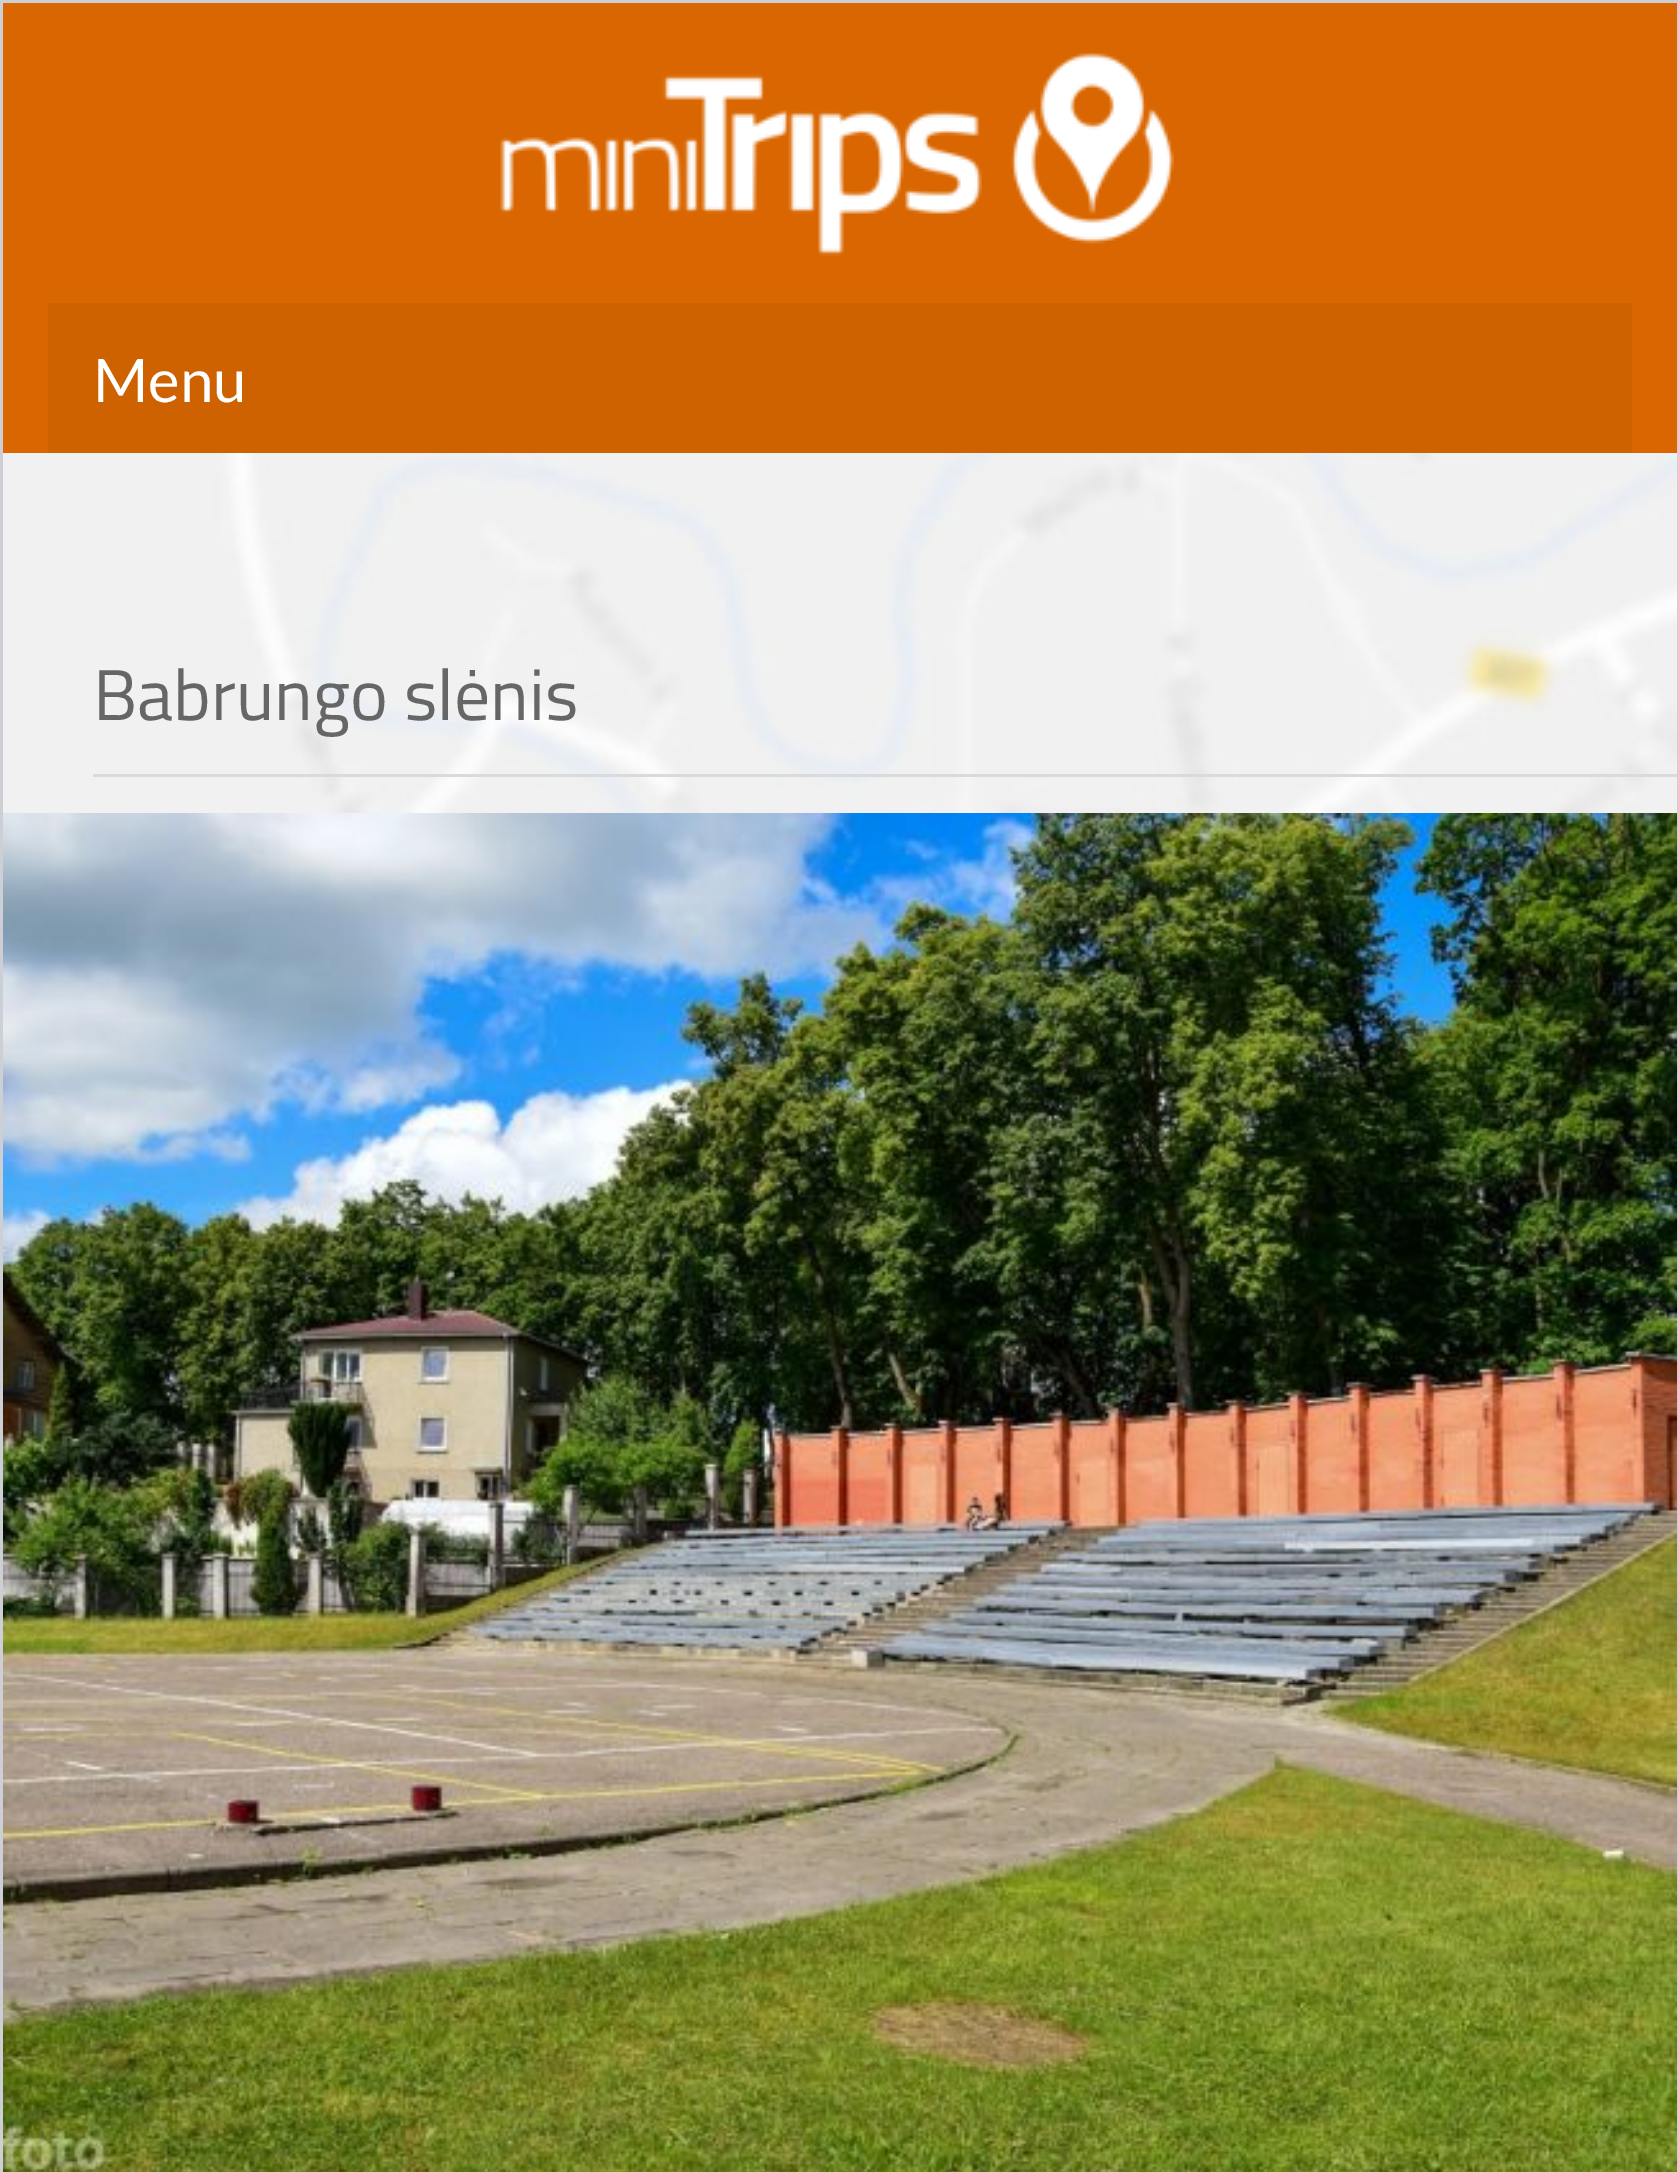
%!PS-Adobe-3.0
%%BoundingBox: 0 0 1678 2172
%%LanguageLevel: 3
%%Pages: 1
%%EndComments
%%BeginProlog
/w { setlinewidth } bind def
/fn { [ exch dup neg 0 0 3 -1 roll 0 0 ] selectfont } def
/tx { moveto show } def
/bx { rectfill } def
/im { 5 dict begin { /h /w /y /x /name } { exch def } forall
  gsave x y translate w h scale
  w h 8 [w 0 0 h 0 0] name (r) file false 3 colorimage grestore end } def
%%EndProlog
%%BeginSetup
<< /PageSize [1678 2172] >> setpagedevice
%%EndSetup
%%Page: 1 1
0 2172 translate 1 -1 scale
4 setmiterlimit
1 setgray
0 0 1678 2172 bx
0.8 0.816 0.831 setrgbcolor
3 w
1.5 1.5 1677 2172 rectstroke
0.851 0.4 0 setrgbcolor
3 3 1674 450 bx
(image0.raw) 500 53 674 203 im
0.808 0.38 0 setrgbcolor
48 303 1584 150 bx
/Lato-Regular 60 fn
1 setgray
(Menu) 93 402 tx
(image1.raw) 3 453 1674 360 im
0.855 setgray
93 774 1584 3 bx
/TitilliumWeb-Regular 72 fn
0.4 setgray
(Babrungo slėnis) 93 720 tx
(image2.raw) 3 813 1674 1359 im
showpage
%%EOF
